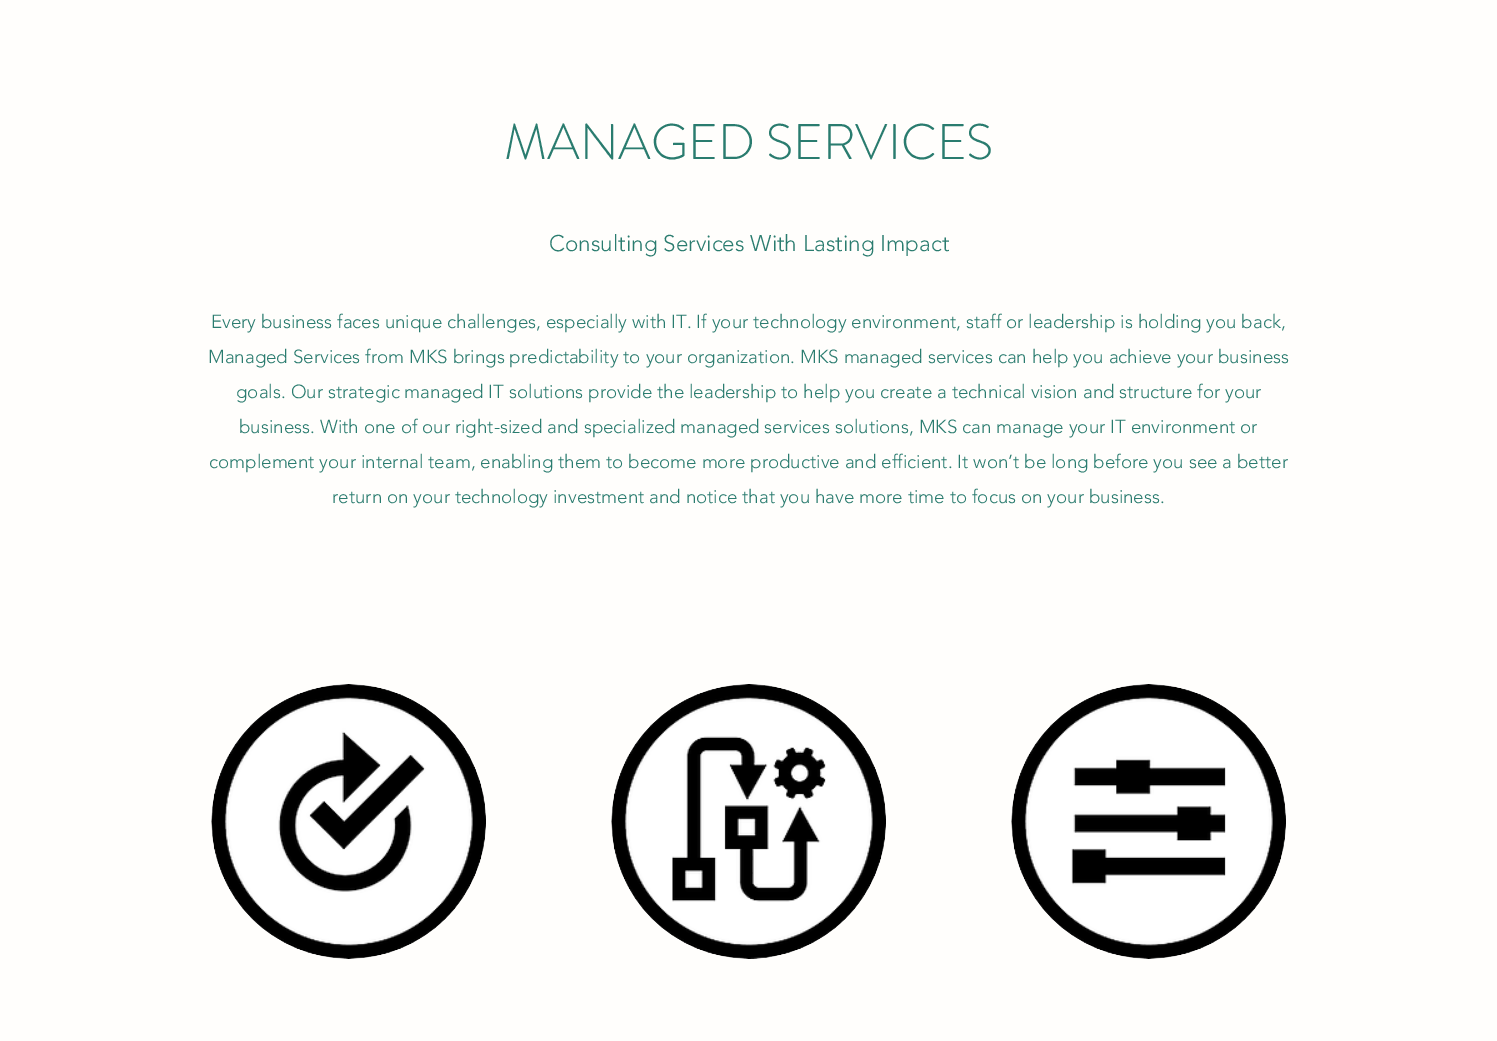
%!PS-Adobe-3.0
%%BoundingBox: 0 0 1497 1041
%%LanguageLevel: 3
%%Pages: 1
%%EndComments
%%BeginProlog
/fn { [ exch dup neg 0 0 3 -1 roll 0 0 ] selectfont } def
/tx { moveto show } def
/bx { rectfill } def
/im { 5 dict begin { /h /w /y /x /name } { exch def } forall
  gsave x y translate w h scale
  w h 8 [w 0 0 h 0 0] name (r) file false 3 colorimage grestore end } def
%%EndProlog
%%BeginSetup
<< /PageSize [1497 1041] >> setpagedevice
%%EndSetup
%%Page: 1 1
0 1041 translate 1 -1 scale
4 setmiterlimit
1 0.996 0.988 setrgbcolor
0 0 1497 1041 bx
/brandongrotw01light-Light 50 fn
0.165 0.486 0.435 setrgbcolor
(MANAGED SERVICES) 504 159 tx
/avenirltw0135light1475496-Light 22.5 fn
(Consulting Services With Lasting Impact) 549 251 tx
/avenirltw0135light1475496-Light 18.75 fn
(Every business faces unique challenges, especially with IT. If your technology environment, staff or leadership is holding you back,) 211 328 tx
(Managed Services from MKS brings predictability to your organization. MKS managed services can help you achieve your business) 208 363 tx
(goals. Our strategic managed IT solutions provide the leadership to help you create a technical vision and structure for your) 236 398 tx
(business. With one of our right-sized and specialized managed services solutions, MKS can manage your IT environment or) 239 433 tx
(complement your internal team, enabling them to become more productive and efficient. It won’t be long before you see a better) 209 468 tx
(return on your technology investment and notice that you have more time to focus on your business.) 332 503 tx
(image0.raw) 211 684 275 275 im
(image1.raw) 611 684 275 275 im
(image2.raw) 1011 684 275 275 im
showpage
%%EOF
